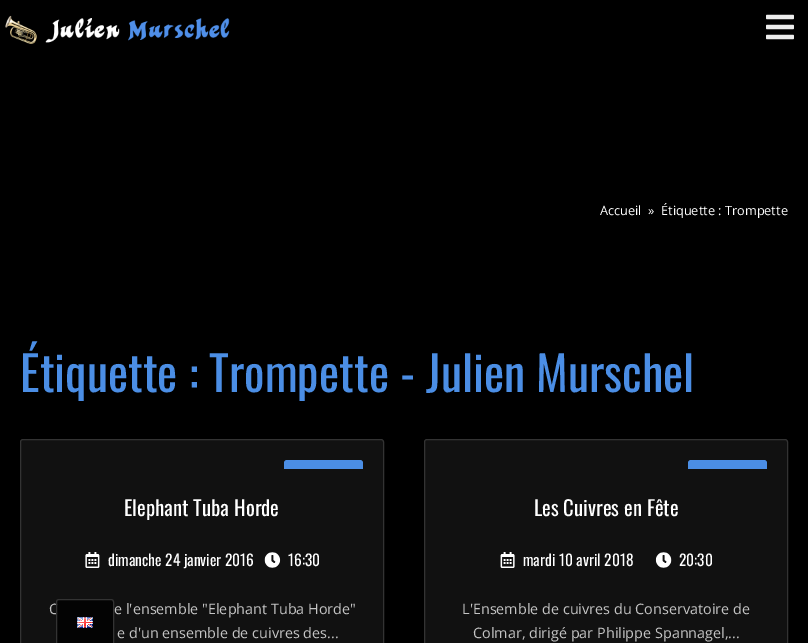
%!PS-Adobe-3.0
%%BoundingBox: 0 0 808 643
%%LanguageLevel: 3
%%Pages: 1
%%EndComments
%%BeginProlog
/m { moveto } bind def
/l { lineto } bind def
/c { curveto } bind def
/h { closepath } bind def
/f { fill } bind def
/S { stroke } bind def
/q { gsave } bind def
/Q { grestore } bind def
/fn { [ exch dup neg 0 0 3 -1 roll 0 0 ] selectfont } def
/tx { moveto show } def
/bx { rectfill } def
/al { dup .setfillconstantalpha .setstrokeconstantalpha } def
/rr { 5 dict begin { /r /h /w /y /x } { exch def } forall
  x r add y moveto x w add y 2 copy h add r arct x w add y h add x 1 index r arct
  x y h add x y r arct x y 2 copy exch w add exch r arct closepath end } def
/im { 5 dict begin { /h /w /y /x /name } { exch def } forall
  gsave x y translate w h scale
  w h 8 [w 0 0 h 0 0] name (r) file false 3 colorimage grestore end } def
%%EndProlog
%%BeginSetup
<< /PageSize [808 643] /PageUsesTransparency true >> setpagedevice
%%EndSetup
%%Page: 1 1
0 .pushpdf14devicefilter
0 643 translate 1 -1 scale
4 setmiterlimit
0 setgray
0 0 808 643 bx
(image0.raw) 5 15 225 29 im
(image1.raw) 766 14 28 26 im
/OpenSans-Regular 12.75 fn
1 setgray
(Accueil) 600 215 tx
(») 648 215 tx
(Étiquette : Trompette) 661 215 tx
/Oswald-Regular 48 fn
0.294 0.557 0.898 setrgbcolor
(Étiquette : Trompette - Julien Murschel) 20 392 tx
0.067 setgray
20.5 439.5 363 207 2.5 rr q f Q
0.2 setgray
S
0.294 0.557 0.898 setrgbcolor
287 460 m 360 460 l 361.5 460 363 461.5 363 463 c 363 469 l 284 469 l 284 463 l 284 461.5 285.5 460 287 460 c h f
/Oswald-Regular 20.75 fn
1 setgray
(Elephant Tuba Horde) 124 516 tx
(image2.raw) 85 552 15 16 im
/Oswald-Regular 15.4 fn
(dimanche 24 janvier 2016) 108 566 tx
(image3.raw) 264 552 17 16 im
(16:30) 288 566 tx
/OpenSans-Regular 14.4 fn
0.769 setgray
(C) 49 614 tx
(e l'ensemble "Elephant Tuba Horde") 114 614 tx
(e d'un ensemble de cuivres des...) 117 638 tx
0.067 setgray
424.5 439.5 363 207 2.5 rr q f Q
0.2 setgray
S
0.294 0.557 0.898 setrgbcolor
691 460 m 764 460 l 765.5 460 767 461.5 767 463 c 767 469 l 688 469 l 688 463 l 688 461.5 689.5 460 691 460 c h f
/Oswald-Regular 20.75 fn
1 setgray
(Les Cuivres en Fête) 534 516 tx
(image4.raw) 500 552 15 16 im
/Oswald-Regular 15.4 fn
(mardi 10 avril 2018) 523 566 tx
(image5.raw) 655 552 17 16 im
(20:30) 679 566 tx
/OpenSans-Regular 14.4 fn
0.769 setgray
(L'Ensemble de cuivres du Conservatoire de) 462 614 tx
(Colmar, dirigé par Philippe Spannagel,...) 473 638 tx
0.8 al
0 setgray
59 599.5 m 111 599.5 l 112.5 599.5 113.5 600.5 113.5 602 c 113.5 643.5 l 56.5 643.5 l 56.5 602 l 56.5 600.5 57.5 599.5 59 599.5 c h f
1 al
0.2 setgray
59 599.5 m 111 599.5 l 112.5 599.5 113.5 600.5 113.5 602 c 113.5 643.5 l 56.5 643.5 l 56.5 602 l 56.5 600.5 57.5 599.5 59 599.5 c h S
(image6.raw) 77 617 16 11 im
.poppdf14devicefilter showpage
%%EOF
